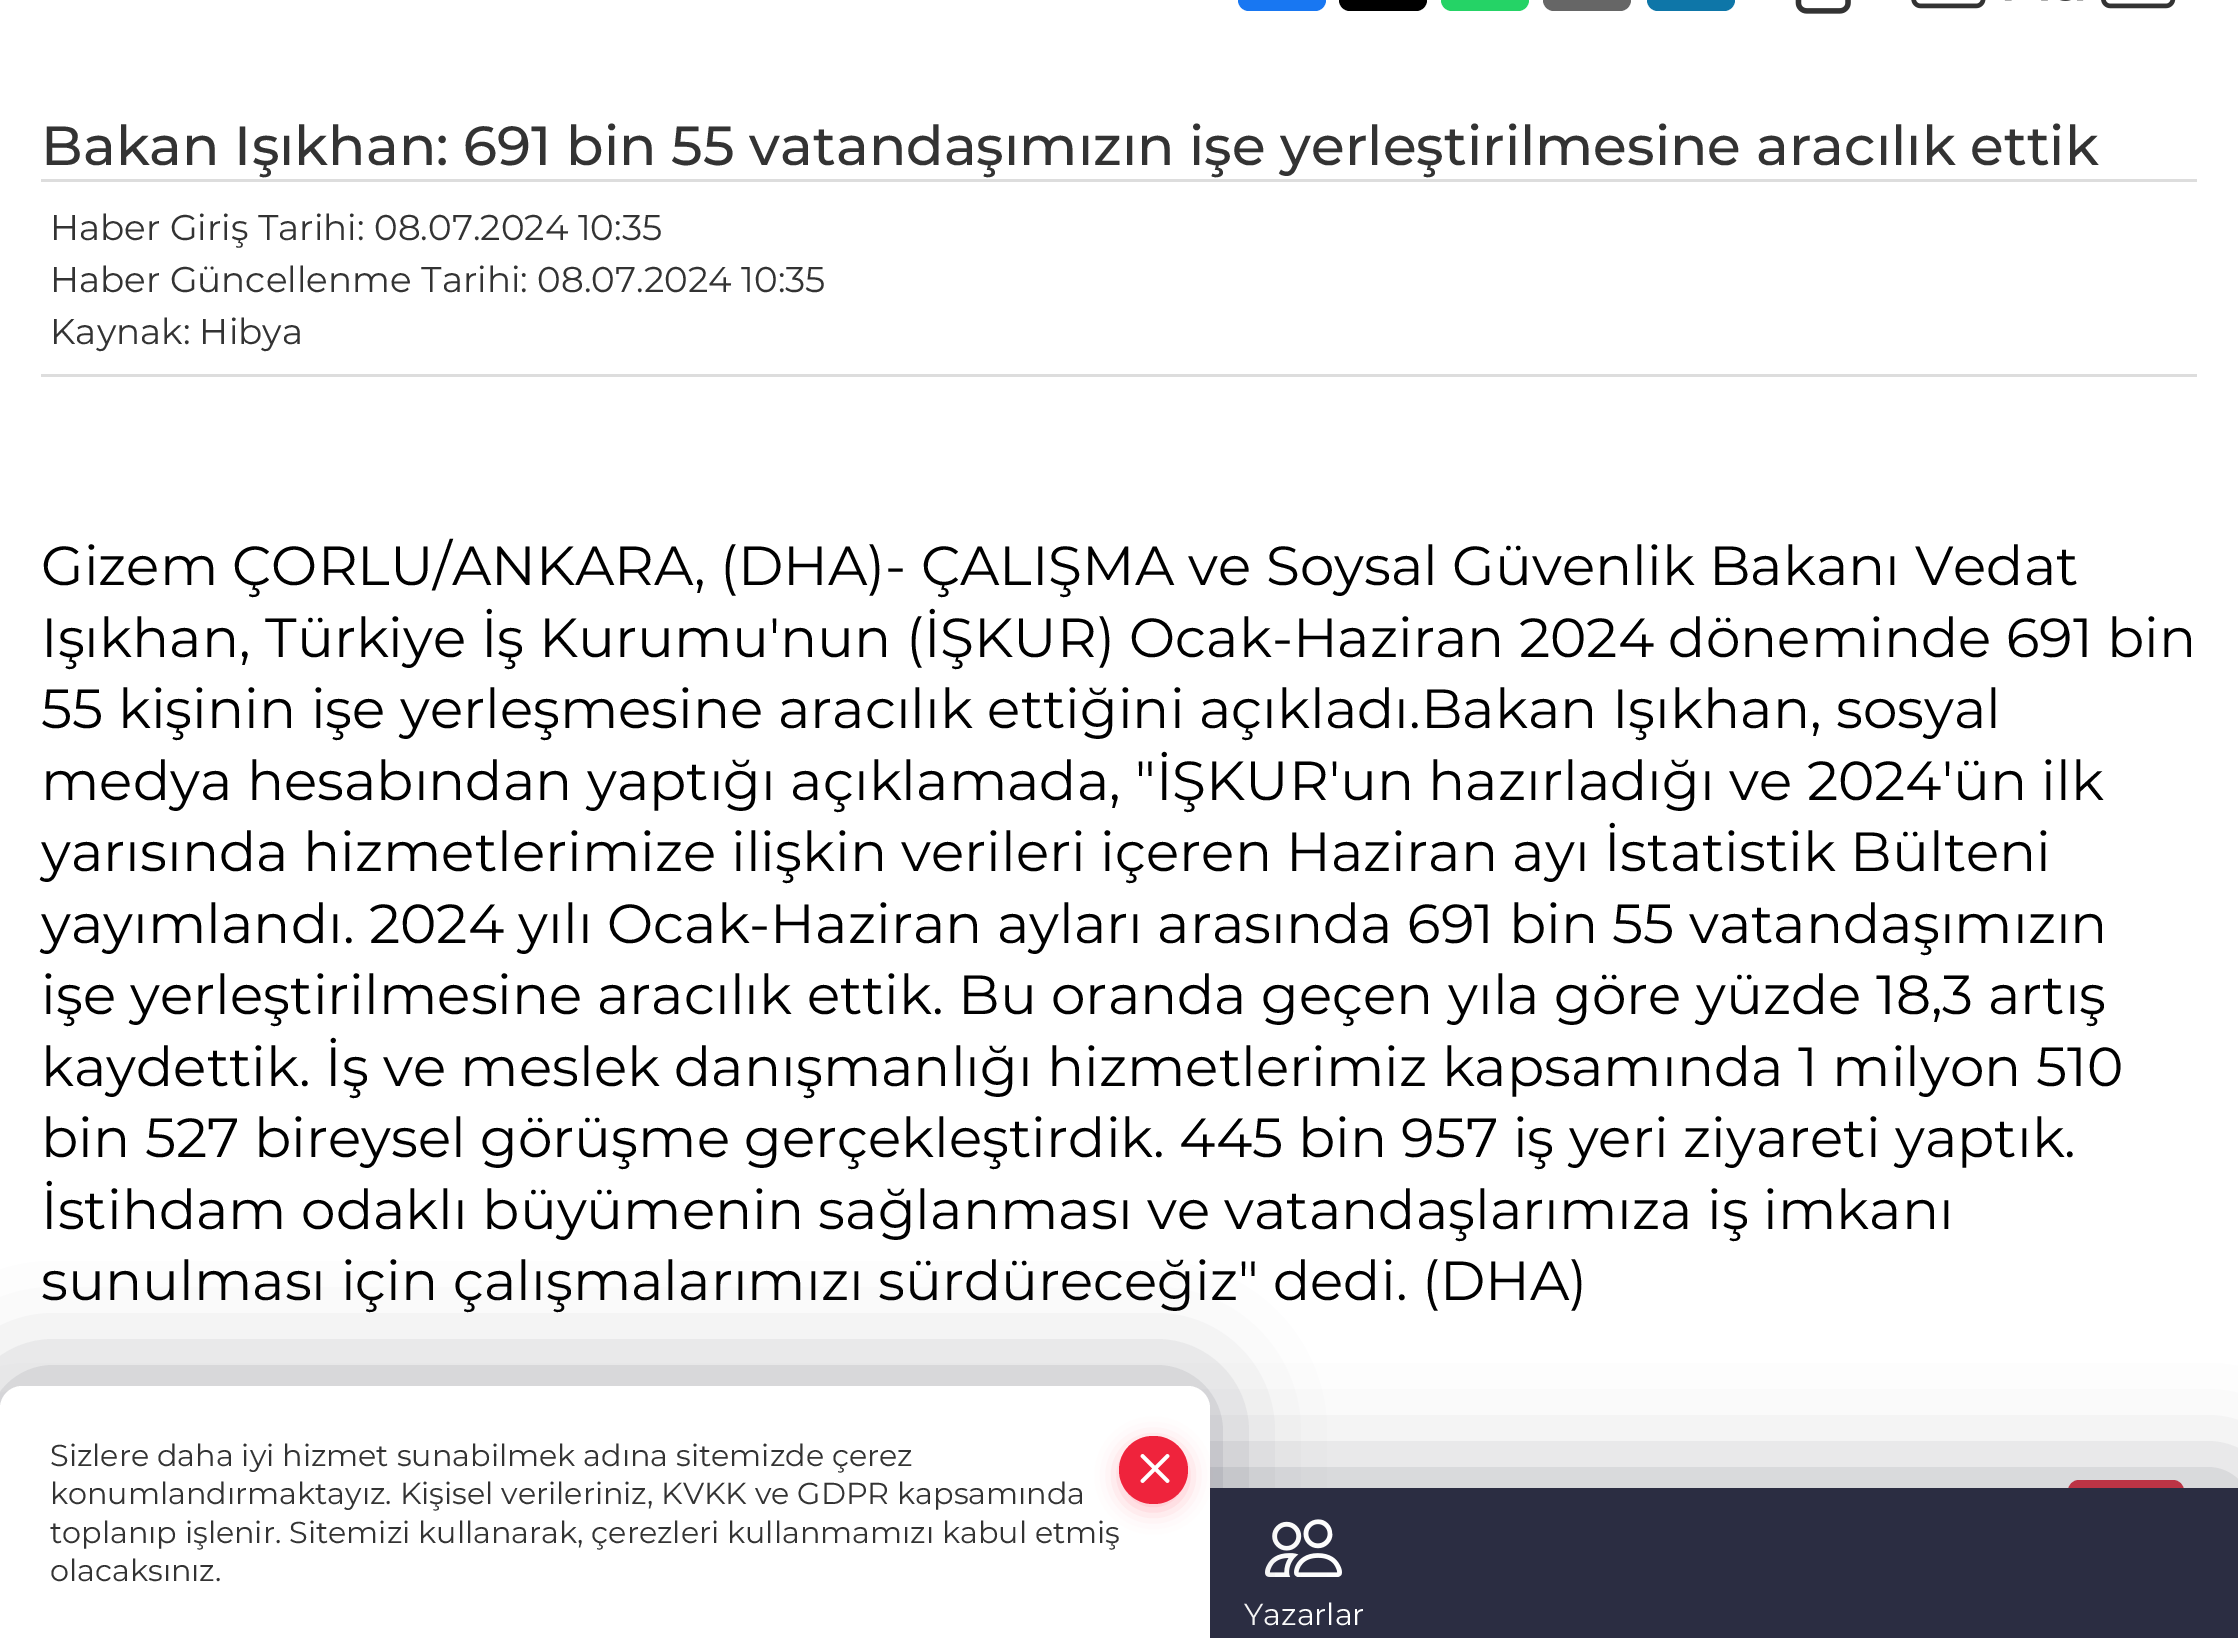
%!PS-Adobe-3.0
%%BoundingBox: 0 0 2238 1638
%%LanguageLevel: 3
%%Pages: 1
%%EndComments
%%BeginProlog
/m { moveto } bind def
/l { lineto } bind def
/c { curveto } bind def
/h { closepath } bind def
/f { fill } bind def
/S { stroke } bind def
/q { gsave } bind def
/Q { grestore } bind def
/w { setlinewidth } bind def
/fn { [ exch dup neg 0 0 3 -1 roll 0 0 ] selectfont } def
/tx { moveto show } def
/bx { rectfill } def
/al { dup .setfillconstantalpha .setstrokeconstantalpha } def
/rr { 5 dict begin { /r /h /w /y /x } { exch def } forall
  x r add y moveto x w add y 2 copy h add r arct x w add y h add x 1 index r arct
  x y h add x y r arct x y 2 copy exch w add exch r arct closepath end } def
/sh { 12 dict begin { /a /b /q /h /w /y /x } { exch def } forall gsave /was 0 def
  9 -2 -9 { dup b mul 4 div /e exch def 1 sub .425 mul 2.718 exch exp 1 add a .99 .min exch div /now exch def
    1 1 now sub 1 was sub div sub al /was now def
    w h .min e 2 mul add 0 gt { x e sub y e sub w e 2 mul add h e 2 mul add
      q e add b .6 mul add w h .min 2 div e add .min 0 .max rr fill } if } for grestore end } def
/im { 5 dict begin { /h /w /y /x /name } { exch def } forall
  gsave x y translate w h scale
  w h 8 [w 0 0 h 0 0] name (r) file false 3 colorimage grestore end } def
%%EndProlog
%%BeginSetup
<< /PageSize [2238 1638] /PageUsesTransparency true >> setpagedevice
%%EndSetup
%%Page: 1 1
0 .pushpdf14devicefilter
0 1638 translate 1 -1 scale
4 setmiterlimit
1 setgray
0 0 2238 1638 bx
0.094 0.467 0.949 setrgbcolor
1238 -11 88 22 11 rr f
0 setgray
1339 -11 88 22 11 rr f
0.145 0.827 0.4 setrgbcolor
1441 -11 88 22 11 rr f
0.4 setgray
1543 -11 88 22 11 rr f
0.055 0.463 0.659 setrgbcolor
1647 -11 88 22 11 rr f
(image0.raw) 1795 0 56 14 im
(image1.raw) 1911 0 75 9 im
(image2.raw) 2004 0 80 1 im
(image3.raw) 2101 0 75 9 im
/Montserrat-Medium 55 fn
0.2 setgray
(Bakan Işıkhan: 691 bin 55 vatandaşımızın işe yerleştirilmesine aracılık ettik) 41 165 tx
0.867 setgray
41 179 2156 3 bx
41 374 2156 3 bx
/Montserrat-Regular 35.75 fn
0.2 setgray
(Haber Giriş Tarihi: 08.07.2024 10:35) 50 240 tx
(Haber Güncellenme Tarihi: 08.07.2024 10:35) 50 292 tx
(Kaynak: Hibya) 50 344 tx
/Montserrat-Regular 55 fn
0 setgray
(Gizem ÇORLU/ANKARA, \(DHA\)- ÇALIŞMA ve Soysal Güvenlik Bakanı Vedat) 41 585 tx
(Işıkhan, Türkiye İş Kurumu'nun \(İŞKUR\) Ocak-Haziran 2024 döneminde 691 bin) 41 657 tx
(55 kişinin işe yerleşmesine aracılık ettiğini açıkladı.Bakan Işıkhan, sosyal) 41 728 tx
(medya hesabından yaptığı açıklamada, "İŞKUR'un hazırladığı ve 2024'ün ilk) 41 800 tx
(yarısında hizmetlerimize ilişkin verileri içeren Haziran ayı İstatistik Bülteni) 41 871 tx
(yayımlandı. 2024 yılı Ocak-Haziran ayları arasında 691 bin 55 vatandaşımızın) 41 943 tx
(işe yerleştirilmesine aracılık ettik. Bu oranda geçen yıla göre yüzde 18,3 artış) 41 1014 tx
(kaydettik. İş ve meslek danışmanlığı hizmetlerimiz kapsamında 1 milyon 510) 41 1086 tx
(bin 527 bireysel görüşme gerçekleştirdik. 445 bin 957 iş yeri ziyareti yaptık.) 41 1157 tx
(İstihdam odaklı büyümenin sağlanması ve vatandaşlarımıza iş imkanı) 41 1229 tx
(sunulması için çalışmalarımızı sürdüreceğiz" dedi. \(DHA\)) 41 1300 tx
0.863 0.208 0.271 setrgbcolor
2069.5 1481.5 113 101 9.5 rr q f Q
3 w
S
0.169 0.176 0.259 setrgbcolor
0 1480 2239 151 0 52 0.36 sh
1210 1488 1028 150 bx
(image4.raw) 1265 1519 77 58 im
/Montserrat-Regular 30.25 fn
1 setgray
(Yazarlar) 1244 1625 tx
0.169 0.176 0.259 setrgbcolor
0 1378 1210 253 22 52 0.36 sh
1 setgray
22 1386 m 1188 1386 l 1200 1386 1210 1396 1210 1408 c 1210 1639 l 0 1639 l 0 1408 l 0 1396 10 1386 22 1386 c h f
0.2 setgray
(Sizlere daha iyi hizmet sunabilmek adına sitemizde çerez) 50 1466 tx
1 0.337 0.416 setrgbcolor
1119 1441 69 69 34.5 11 0.38 sh
0.937 0.137 0.235 setrgbcolor
1119 1436 69 68 34 rr f
(image5.raw) 1140 1454 30 29 im
0.2 setgray
(konumlandırmaktayız. Kişisel verileriniz, KVKK ve GDPR kapsamında) 50 1504 tx
(toplanıp işlenir. Sitemizi kullanarak, çerezleri kullanmamızı kabul etmiş) 50 1543 tx
(olacaksınız.) 50 1581 tx
.poppdf14devicefilter showpage
%%EOF
